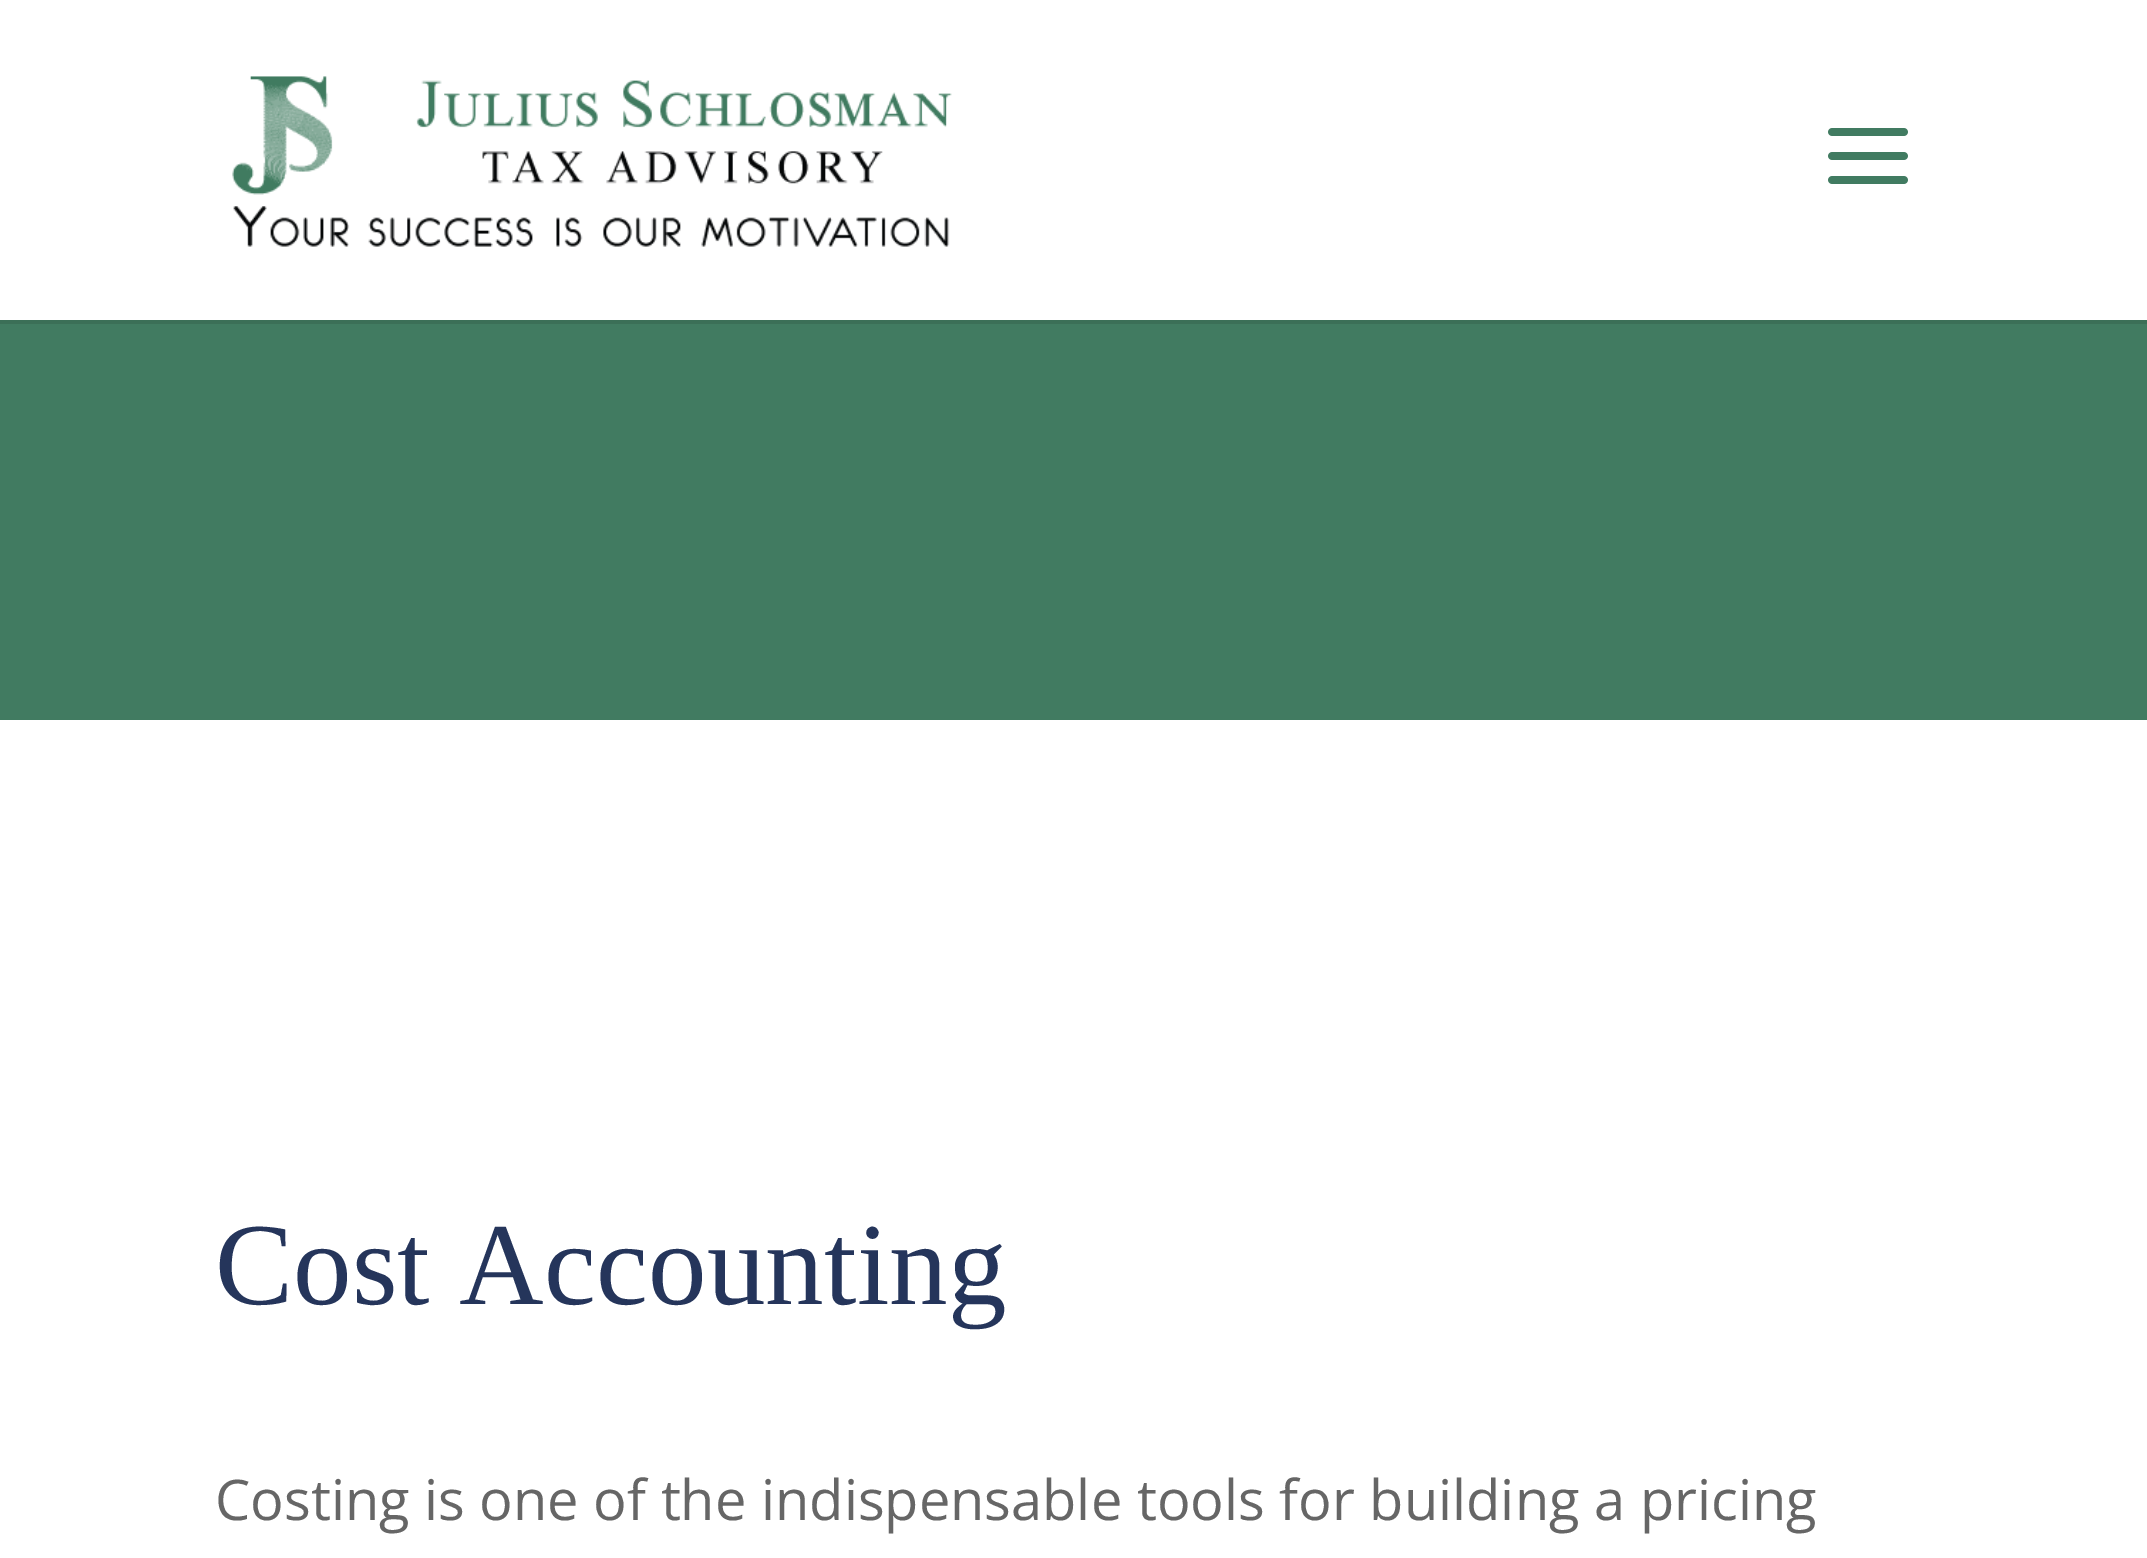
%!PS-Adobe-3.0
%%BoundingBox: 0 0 2147 1558
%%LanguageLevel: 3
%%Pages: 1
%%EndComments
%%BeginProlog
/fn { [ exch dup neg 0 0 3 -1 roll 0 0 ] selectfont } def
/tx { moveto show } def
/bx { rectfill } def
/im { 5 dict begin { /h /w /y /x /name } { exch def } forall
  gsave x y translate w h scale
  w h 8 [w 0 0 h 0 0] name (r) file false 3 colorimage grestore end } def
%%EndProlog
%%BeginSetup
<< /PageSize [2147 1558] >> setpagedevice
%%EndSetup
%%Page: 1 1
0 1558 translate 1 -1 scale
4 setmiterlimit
1 setgray
0 0 2147 1558 bx
0.231 0.435 0.341 setrgbcolor
0 320 2147 4 bx
(image0.raw) 232 76 720 171 im
(image1.raw) 1828 128 80 56 im
0.255 0.482 0.38 setrgbcolor
0 324 2147 396 bx
/LiberationSerif-Regular 117.25 fn
0.145 0.208 0.357 setrgbcolor
(Cost Accounting) 215 1304 tx
/OpenSans-Regular 56 fn
0.4 setgray
(Costing is one of the indispensable tools for building a pricing) 215 1520 tx
showpage
%%EOF
